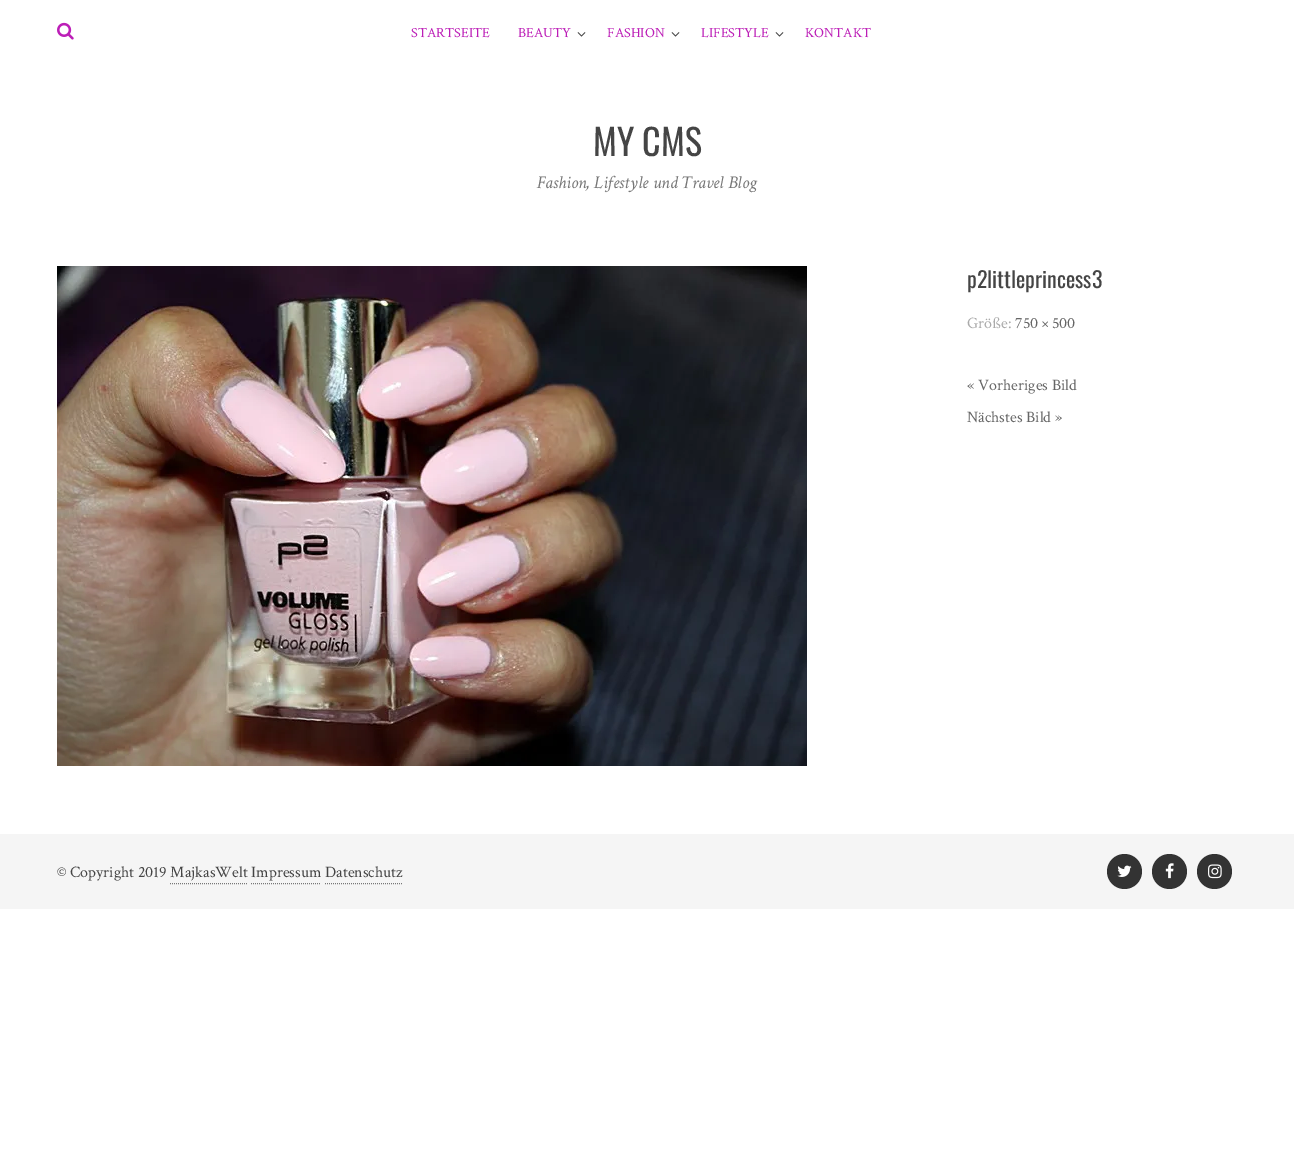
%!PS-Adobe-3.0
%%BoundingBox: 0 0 1294 1149
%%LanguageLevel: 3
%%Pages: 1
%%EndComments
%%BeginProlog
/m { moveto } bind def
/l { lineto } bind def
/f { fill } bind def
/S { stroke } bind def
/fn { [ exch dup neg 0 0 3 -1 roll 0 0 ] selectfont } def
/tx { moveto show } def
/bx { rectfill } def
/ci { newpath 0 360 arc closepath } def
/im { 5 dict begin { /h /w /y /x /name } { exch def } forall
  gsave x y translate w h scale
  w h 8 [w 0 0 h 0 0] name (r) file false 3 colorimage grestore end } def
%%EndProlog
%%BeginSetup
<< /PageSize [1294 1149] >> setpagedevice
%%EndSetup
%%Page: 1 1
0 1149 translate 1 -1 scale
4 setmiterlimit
1 setgray
0 0 1294 1149 bx
(image0.raw) 57 22 17 18 im
/CrimsonText-Regular 14 fn
0.737 0.118 0.718 setrgbcolor
(STARTSEITE) 411 37 tx
(BEAUTY) 518 37 tx
(image1.raw) 577 32 9 5 im
(FASHION) 607 37 tx
(image1.raw) 671 32 9 5 im
(LIFESTYLE) 701 37 tx
(image1.raw) 775 32 9 5 im
(KONTAKT) 805 37 tx
/Oswald-Regular 36 fn
0.271 setgray
(MY CMS) 593 156 tx
/CrimsonText-Italic 18 fn
0.467 setgray
(Fashion, Lifestyle und Travel Blog) 537 188 tx
(image2.raw) 57 266 750 500 im
/Oswald-Regular 22 fn
0.271 setgray
(p2littleprincess3) 967 288 tx
/CrimsonText-Regular 16 fn
0.667 setgray
(Größe:) 967 328 tx
0.4 setgray
(750 × 500) 1015 328 tx
(« Vorheriges Bild) 967 390 tx
(Nächstes Bild ») 967 422 tx
0.961 setgray
0 834 1294 75 bx
0.271 setgray
(© Copyright 2019 MajkasWelt Impressum Datenschutz) 57 877 tx
0.467 setgray
[1 1] 0 setdash
170 883.5 m 248 883.5 l S
251 883.5 m 321 883.5 l S
325 883.5 m 403 883.5 l S
0.2 setgray
1124.5 871.5 17.5 ci f
(image3.raw) 1117 865 15 12 im
1169.5 871.5 17.5 ci f
(image4.raw) 1165 863 9 16 im
1214.5 871.5 17.5 ci f
(image5.raw) 1208 864 14 15 im
showpage
%%EOF
